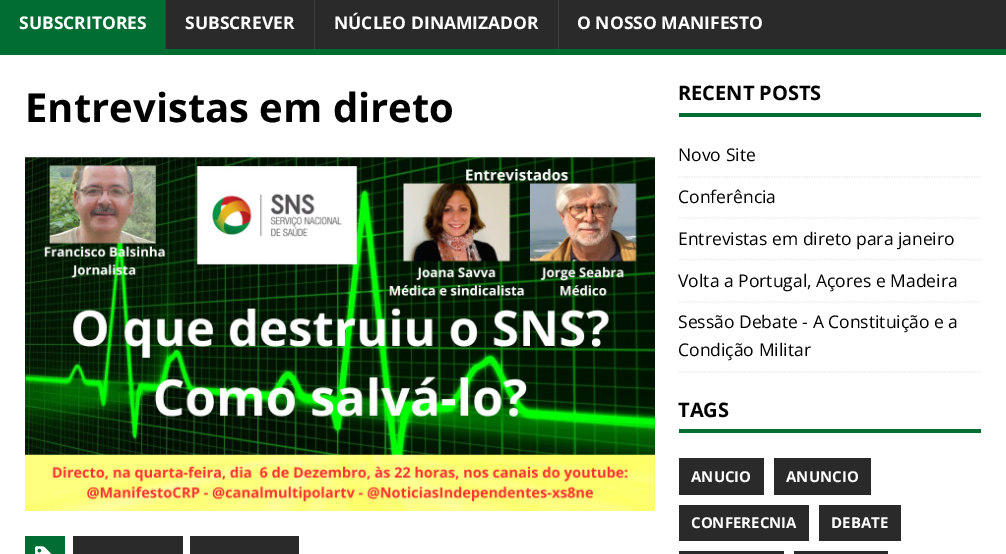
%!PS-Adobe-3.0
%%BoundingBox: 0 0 1006 554
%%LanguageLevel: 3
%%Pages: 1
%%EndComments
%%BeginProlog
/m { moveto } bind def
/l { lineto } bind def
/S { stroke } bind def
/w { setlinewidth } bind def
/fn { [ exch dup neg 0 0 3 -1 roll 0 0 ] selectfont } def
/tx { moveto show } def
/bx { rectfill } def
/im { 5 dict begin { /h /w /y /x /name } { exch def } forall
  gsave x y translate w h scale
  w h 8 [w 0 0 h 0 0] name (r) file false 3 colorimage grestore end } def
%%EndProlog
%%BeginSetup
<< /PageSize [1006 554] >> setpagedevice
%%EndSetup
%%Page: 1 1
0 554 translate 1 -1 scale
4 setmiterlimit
1 setgray
0 0 1006 554 bx
0 0.431 0.2 setrgbcolor
0 49 1006 6 bx
0.165 setgray
166 0 840 49 bx
0 0.431 0.2 setrgbcolor
0 0 165 49 bx
/OpenSans-Bold 17.5 fn
1 setgray
(SUBSCRITORES) 19 29 tx
0.247 setgray
165 0 1 49 bx
1 setgray
(SUBSCREVER) 185 29 tx
0.247 setgray
314 0 1 49 bx
1 setgray
(NÚCLEO DINAMIZADOR) 334 29 tx
0.247 setgray
558 0 1 49 bx
1 setgray
(O NOSSO MANIFESTO) 577 29 tx
/OpenSans-Bold 40 fn
0 setgray
(Entrevistas em direto) 25 122 tx
(image0.raw) 25 157 630 354 im
0 0.431 0.2 setrgbcolor
25 536 40 18 bx
(image1.raw) 35 546 17 8 im
0.165 setgray
73 536 110 18 bx
190 536 109 18 bx
0 0.431 0.2 setrgbcolor
679 113 302 4 bx
/OpenSans-Bold 20 fn
0 setgray
(RECENT POSTS) 678 100 tx
0.922 setgray
1.2 w
[1.25 1.25] 0 setdash
679 177 m 981 177 l S
/OpenSans-Regular 17.5 fn
0 setgray
(Novo Site) 678 161 tx
0.922 setgray
679 218 m 981 218 l S
0 setgray
(Conferência) 678 203 tx
0.922 setgray
679 259.5 m 981 259.5 l S
0 setgray
(Entrevistas em direto para janeiro) 678 245 tx
0.922 setgray
679 302 m 981 302 l S
0 setgray
(Volta a Portugal, Açores e Madeira) 678 287 tx
0.922 setgray
679 372 m 981 372 l S
0 setgray
(Sessão Debate - A Constituição e a) 678 328 tx
(Condição Militar) 678 356 tx
0 0.431 0.2 setrgbcolor
679 429 302 4 bx
/OpenSans-Bold 20 fn
0 setgray
(TAGS) 678 417 tx
0.165 setgray
679 458 85 37 bx
/OpenSans-Bold 15 fn
1 setgray
(ANUCIO) 691 482 tx
0.165 setgray
774 458 97 37 bx
1 setgray
(ANUNCIO) 786 482 tx
0.165 setgray
679 505 130 36 bx
1 setgray
(CONFERECNIA) 691 528 tx
0.165 setgray
819 505 82 36 bx
1 setgray
(DEBATE) 831 528 tx
0.165 setgray
679 551 105 3 bx
794 551 94 3 bx
showpage
%%EOF
